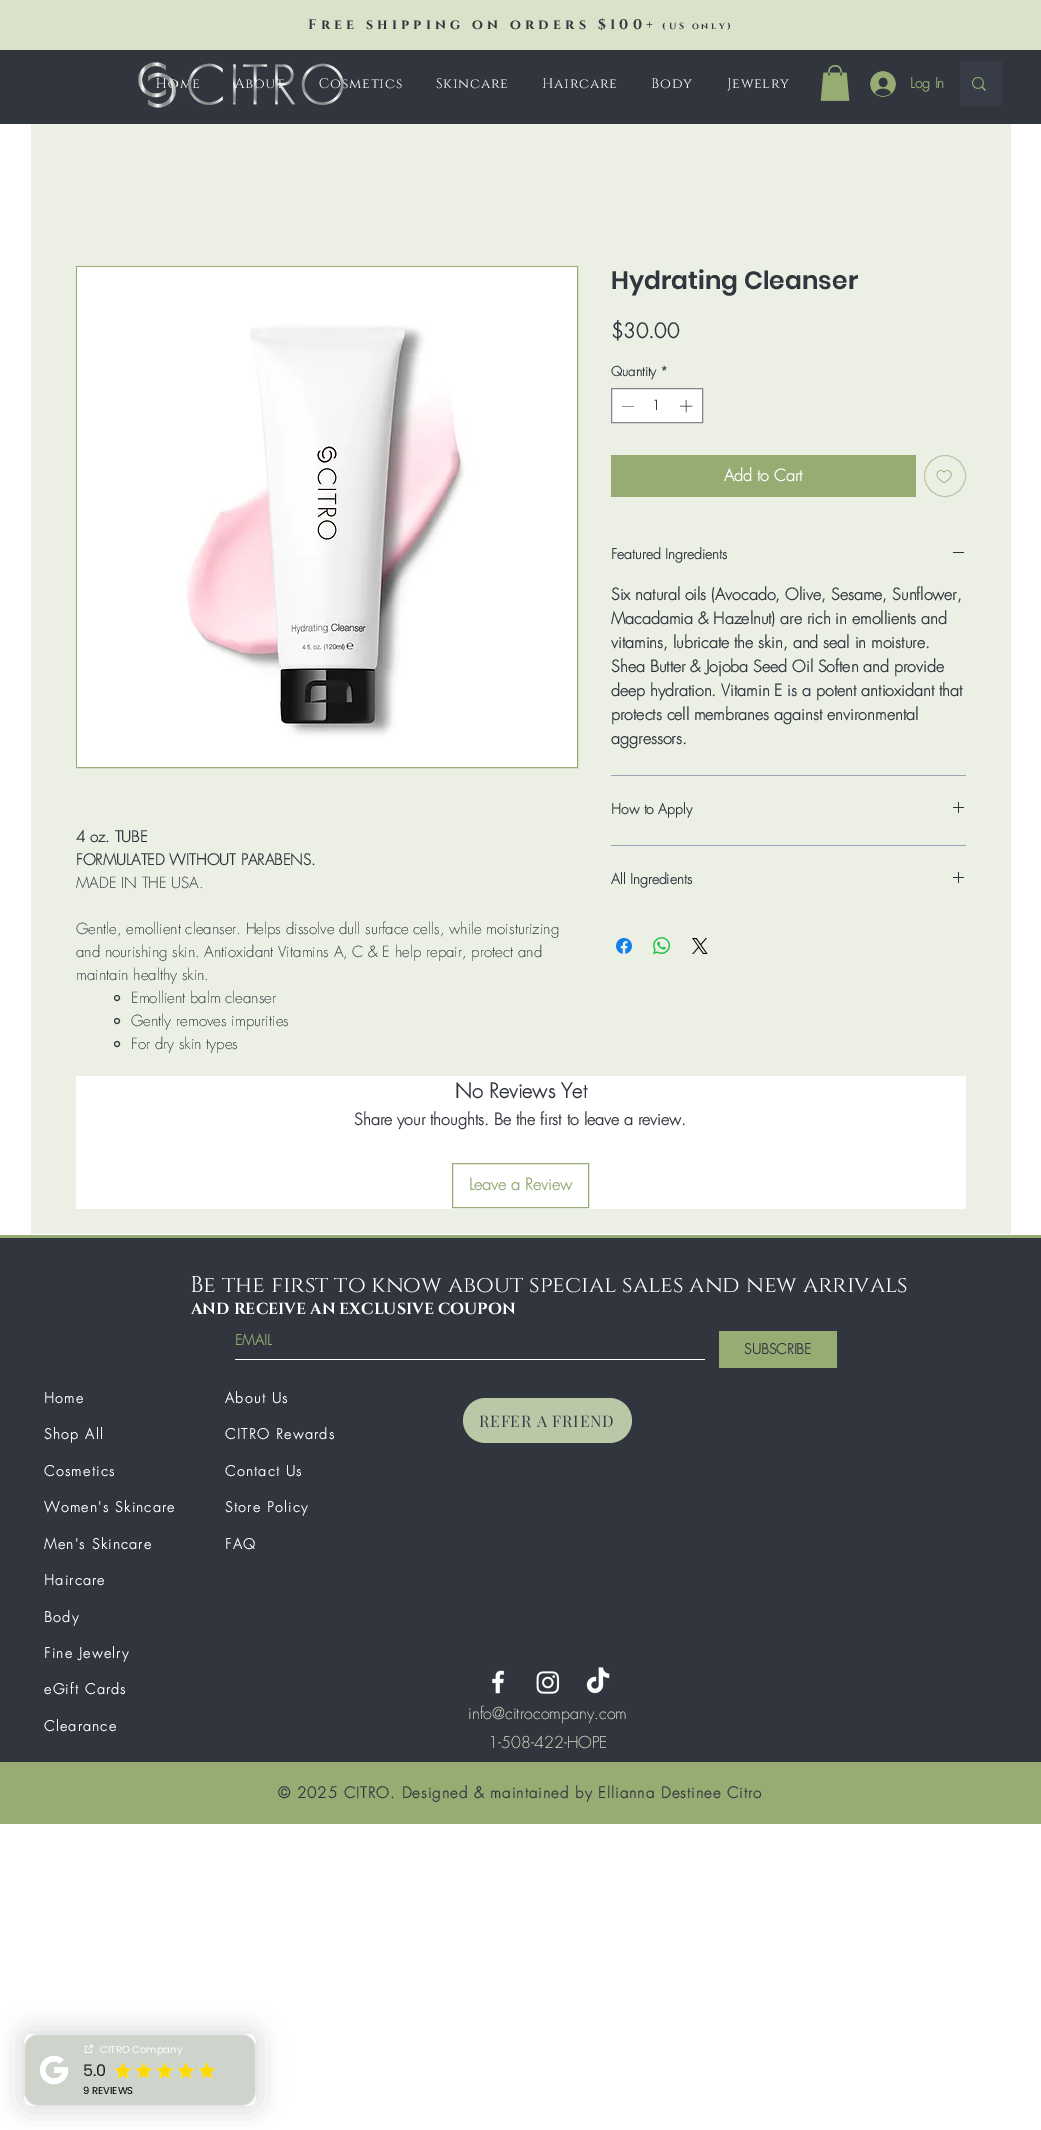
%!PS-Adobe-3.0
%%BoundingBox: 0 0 1041 2130
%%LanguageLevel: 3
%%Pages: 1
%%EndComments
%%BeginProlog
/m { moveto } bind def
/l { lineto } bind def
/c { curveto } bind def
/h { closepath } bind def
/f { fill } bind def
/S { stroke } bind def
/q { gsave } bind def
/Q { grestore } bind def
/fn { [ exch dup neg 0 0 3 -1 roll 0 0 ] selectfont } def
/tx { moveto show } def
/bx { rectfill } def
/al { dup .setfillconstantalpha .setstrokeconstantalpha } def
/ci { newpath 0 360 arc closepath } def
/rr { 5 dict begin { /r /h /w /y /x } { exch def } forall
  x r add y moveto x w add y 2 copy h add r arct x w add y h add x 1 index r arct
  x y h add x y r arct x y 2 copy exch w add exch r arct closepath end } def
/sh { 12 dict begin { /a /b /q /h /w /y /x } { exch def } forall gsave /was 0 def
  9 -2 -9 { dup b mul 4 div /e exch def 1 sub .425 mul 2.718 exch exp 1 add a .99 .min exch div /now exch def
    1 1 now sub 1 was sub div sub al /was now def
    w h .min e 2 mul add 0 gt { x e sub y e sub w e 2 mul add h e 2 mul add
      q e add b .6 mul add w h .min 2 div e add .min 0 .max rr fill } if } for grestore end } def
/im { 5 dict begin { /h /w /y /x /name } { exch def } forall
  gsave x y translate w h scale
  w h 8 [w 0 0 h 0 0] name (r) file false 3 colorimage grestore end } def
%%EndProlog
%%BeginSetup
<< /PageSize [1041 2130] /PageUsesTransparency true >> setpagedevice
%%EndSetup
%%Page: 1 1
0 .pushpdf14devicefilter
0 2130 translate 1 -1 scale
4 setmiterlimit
1 setgray
0 0 1041 2130 bx
0.855 0.89 0.792 setrgbcolor
0 0 1041 50 bx
/Cinzel-Bold 14 fn
0.192 0.208 0.239 setrgbcolor
308 29 m 4.2 0 (Free shipping on orders $100+) ashow
/Cinzel-Bold 9 fn
662 29 m 2.75 0 (\(US only\)) ashow
0 50 1041 74 bx
/Cinzel-Regular 14 fn
1 setgray
156 88 m 0.75 0 (Home) ashow
234 88 m 0.75 0 (About) ashow
319 88 m 0.75 0 (Cosmetics) ashow
436 88 m 0.75 0 (Skincare) ashow
542 88 m 0.75 0 (Haircare) ashow
651 88 m 0.75 0 (Body) ashow
727 88 m 0.75 0 (Jewelry) ashow
(image0.raw) 820 65 30 36 im
(image1.raw) 870 71 26 26 im
/futura-Bold 14 fn
0.588 0.675 0.451 setrgbcolor
(Log In) 910 88 tx
0.216 0.235 0.278 setrgbcolor
960 61 42 45 bx
(image2.raw) 972 77 14 14 im
(image3.raw) 138 62 39 46 im
(image4.raw) 188 63 156 42 im
0.922 0.937 0.894 setrgbcolor
31 124 980 1110 bx
/Poppins-SemiBold 25 fn
0.192 0.208 0.239 setrgbcolor
(Hydrating Cleanser) 611 289 tx
/futura-Bold 20 fn
($30.00) 611 338 tx
/futura-Bold 13 fn
(Quantity *) 611 376 tx
1 setgray
611.5 388.5 m 702.5 388.5 l 702.5 422.5 l 611.5 422.5 l h q f Q
0.514 0.525 0.545 setrgbcolor
S
0.192 0.208 0.239 setrgbcolor
634 406 m 634 406.5 l 622 406.5 l 622 406 l h eofill
(1) 652 410 tx
(image5.raw) 680 400 13 13 im
0.588 0.675 0.451 setrgbcolor
611 455 305 42 bx
/futura-Bold 16 fn
1 setgray
(Add to Cart) 724 481 tx
0.733 0.784 0.655 setrgbcolor
945 476 20.5 ci S
(image6.raw) 936 470 16 14 im
0.604 0.643 0.722 setrgbcolor
611 775 355 1 bx
/futura-Bold 14 fn
0.192 0.208 0.239 setrgbcolor
(Featured Ingredients) 611 559 tx
953 552 11 1 bx
/futura-Bold 16 fn
(Six natural oils \(Avocado, Olive, Sesame, Sunflower,) 611 600 tx
(Macadamia & Hazelnut\) are rich in emollients and) 611 624 tx
(vitamins, lubricate the skin, and seal in moisture.) 611 648 tx
(Shea Butter & Jojoba Seed Oil Soften and provide) 611 672 tx
(deep hydration. Vitamin E is a potent antioxidant that) 611 696 tx
(protects cell membranes against environmental) 611 720 tx
(aggressors.) 611 744 tx
0.604 0.643 0.722 setrgbcolor
611 845 355 1 bx
/futura-Bold 14 fn
0.192 0.208 0.239 setrgbcolor
(How to Apply) 611 814 tx
(image7.raw) 953 802 11 11 im
(All Ingredients) 611 884 tx
(image7.raw) 953 872 11 11 im
(image8.raw) 616 938 16 16 im
(image9.raw) 653 937 17 17 im
(image10.raw) 692 938 16 16 im
0.588 0.675 0.451 setrgbcolor
76.5 266.5 501 501 rectstroke
(image11.raw) 77 267 500 500 im
/futura-Bold 15 fn
0.192 0.208 0.239 setrgbcolor
(4 oz. TUBE) 76 842 tx
(FORMULATED WITHOUT PARABENS.) 76 865 tx
/futura-Light 15 fn
(MADE IN THE USA.) 76 888 tx
(Gentle, emollient cleanser. Helps dissolve dull surface cells, while moisturizing) 76 934 tx
(and nourishing skin. Antioxidant Vitamins A, C & E help repair, protect and) 76 957 tx
(maintain healthy skin.) 76 980 tx
117 998 2.5 ci S
(Emollient balm cleanser) 131 1003 tx
117 1021 2.5 ci S
(Gently removes impurities) 131 1026 tx
117 1044 2.5 ci S
(For dry skin types) 131 1049 tx
1 setgray
76 1076 890 133 bx
/futura-Bold 20 fn
0.192 0.208 0.239 setrgbcolor
(No Reviews Yet) 455 1098 tx
/futura-Bold 16 fn
(Share your thoughts. Be the first to leave a review.) 354 1125 tx
0.588 0.675 0.451 setrgbcolor
452.5 1163.5 136 44 rectstroke
(Leave a Review) 469 1190 tx
0.192 0.208 0.239 setrgbcolor
0 1238 1041 524 bx
0.588 0.675 0.451 setrgbcolor
0 1235 1041 3 bx
/Cinzel-Regular 23 fn
1 setgray
(Be the first to know about special sales and new arrivals) 190 1292 tx
/Cinzel-Bold 16 fn
(AND RECEIVE AN EXCLUSIVE COUPON) 191 1314 tx
235 1359 470 1 bx
/futura-Bold 14 fn
0.588 0.675 0.451 setrgbcolor
(EMAIL) 235 1345 tx
719 1331 118 37 bx
0.192 0.208 0.239 setrgbcolor
(SUBSCRIBE) 744 1354 tx
1 setgray
44 1403 m 1.4 0 (Home) ashow
44 1439 m 1.4 0 (Shop All) ashow
44 1476 m 1.4 0 (Cosmetics) ashow
44 1512 m 1.4 0 (Women's Skincare) ashow
44 1549 m 1.4 0 (Men's Skincare) ashow
44 1585 m 1.4 0 (Haircare) ashow
44 1622 m 1.4 0 (Body) ashow
44 1658 m 1.4 0 (Fine Jewelry) ashow
44 1694 m 1.4 0 (eGift Cards) ashow
44 1731 m 1.4 0 (Clearance) ashow
225 1403 m 1.4 0 (About Us) ashow
225 1439 m 1.4 0 (CITRO Rewards) ashow
225 1476 m 1.4 0 (Contact Us) ashow
225 1512 m 1.4 0 (Store Policy) ashow
225 1549 m 1.4 0 (FAQ) ashow
0.733 0.784 0.655 setrgbcolor
463 1398 169 45 22.5 rr f
/PlayfairDisplay-Regular 16 fn
0.216 0.235 0.278 setrgbcolor
479 1427 m 0.75 0 (REFER A FRIEND) ashow
(image12.raw) 492 1670 13 24 im
(image13.raw) 536 1671 24 23 im
(image14.raw) 586 1667 24 27 im
/futura-Light 16 fn
0.855 0.89 0.792 setrgbcolor
(info@citrocompany.com) 468 1719 tx
(1-508-422-HOPE) 488 1748 tx
0.588 0.675 0.451 setrgbcolor
0 1762 1041 62 bx
/futura-Bold 15 fn
0.192 0.208 0.239 setrgbcolor
278 1798 m 1.05 0 (© 2025 CITRO. Designed & maintained by Ellianna Destinee Citro) ashow
q
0 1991 m 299 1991 l 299 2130 l 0 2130 l h 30 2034 m 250 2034 l 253.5 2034 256 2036.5 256 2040 c 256 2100 l 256 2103.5 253.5 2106 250 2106 c 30 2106 l 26.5 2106 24 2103.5 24 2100 c 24 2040 l 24 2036.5 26.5 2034 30 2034 c h eoclip newpath
0 setgray
18 2028 244 84 12 12 0.12 sh
Q
0.7 al
0.725 0.753 0.714 setrgbcolor
24.5 2034.5 231 71 13.5 rr f
1 al
0.898 setgray
24.5 2034.5 231 71 13.5 rr S
(image15.raw) 39 2055 30 30 im
(image16.raw) 84 2044 9 9 im
/Poppins-Regular 10 fn
1 setgray
(CITRO Company) 100 2053 tx
/Poppins-Regular 16 fn
0.122 setgray
(5.0) 83 2076 tx
(image17.raw) 114 2062 18 17 im
(image18.raw) 114 2062 18 17 im
(image17.raw) 135 2062 18 17 im
(image18.raw) 135 2062 18 17 im
(image17.raw) 156 2062 18 17 im
(image18.raw) 156 2062 18 17 im
(image17.raw) 177 2062 18 17 im
(image18.raw) 177 2062 18 17 im
(image17.raw) 198 2062 18 17 im
(image18.raw) 198 2062 18 17 im
/Poppins-Regular 10 fn
0 setgray
(9 REVIEWS) 83 2094 tx
.poppdf14devicefilter showpage
%%EOF
